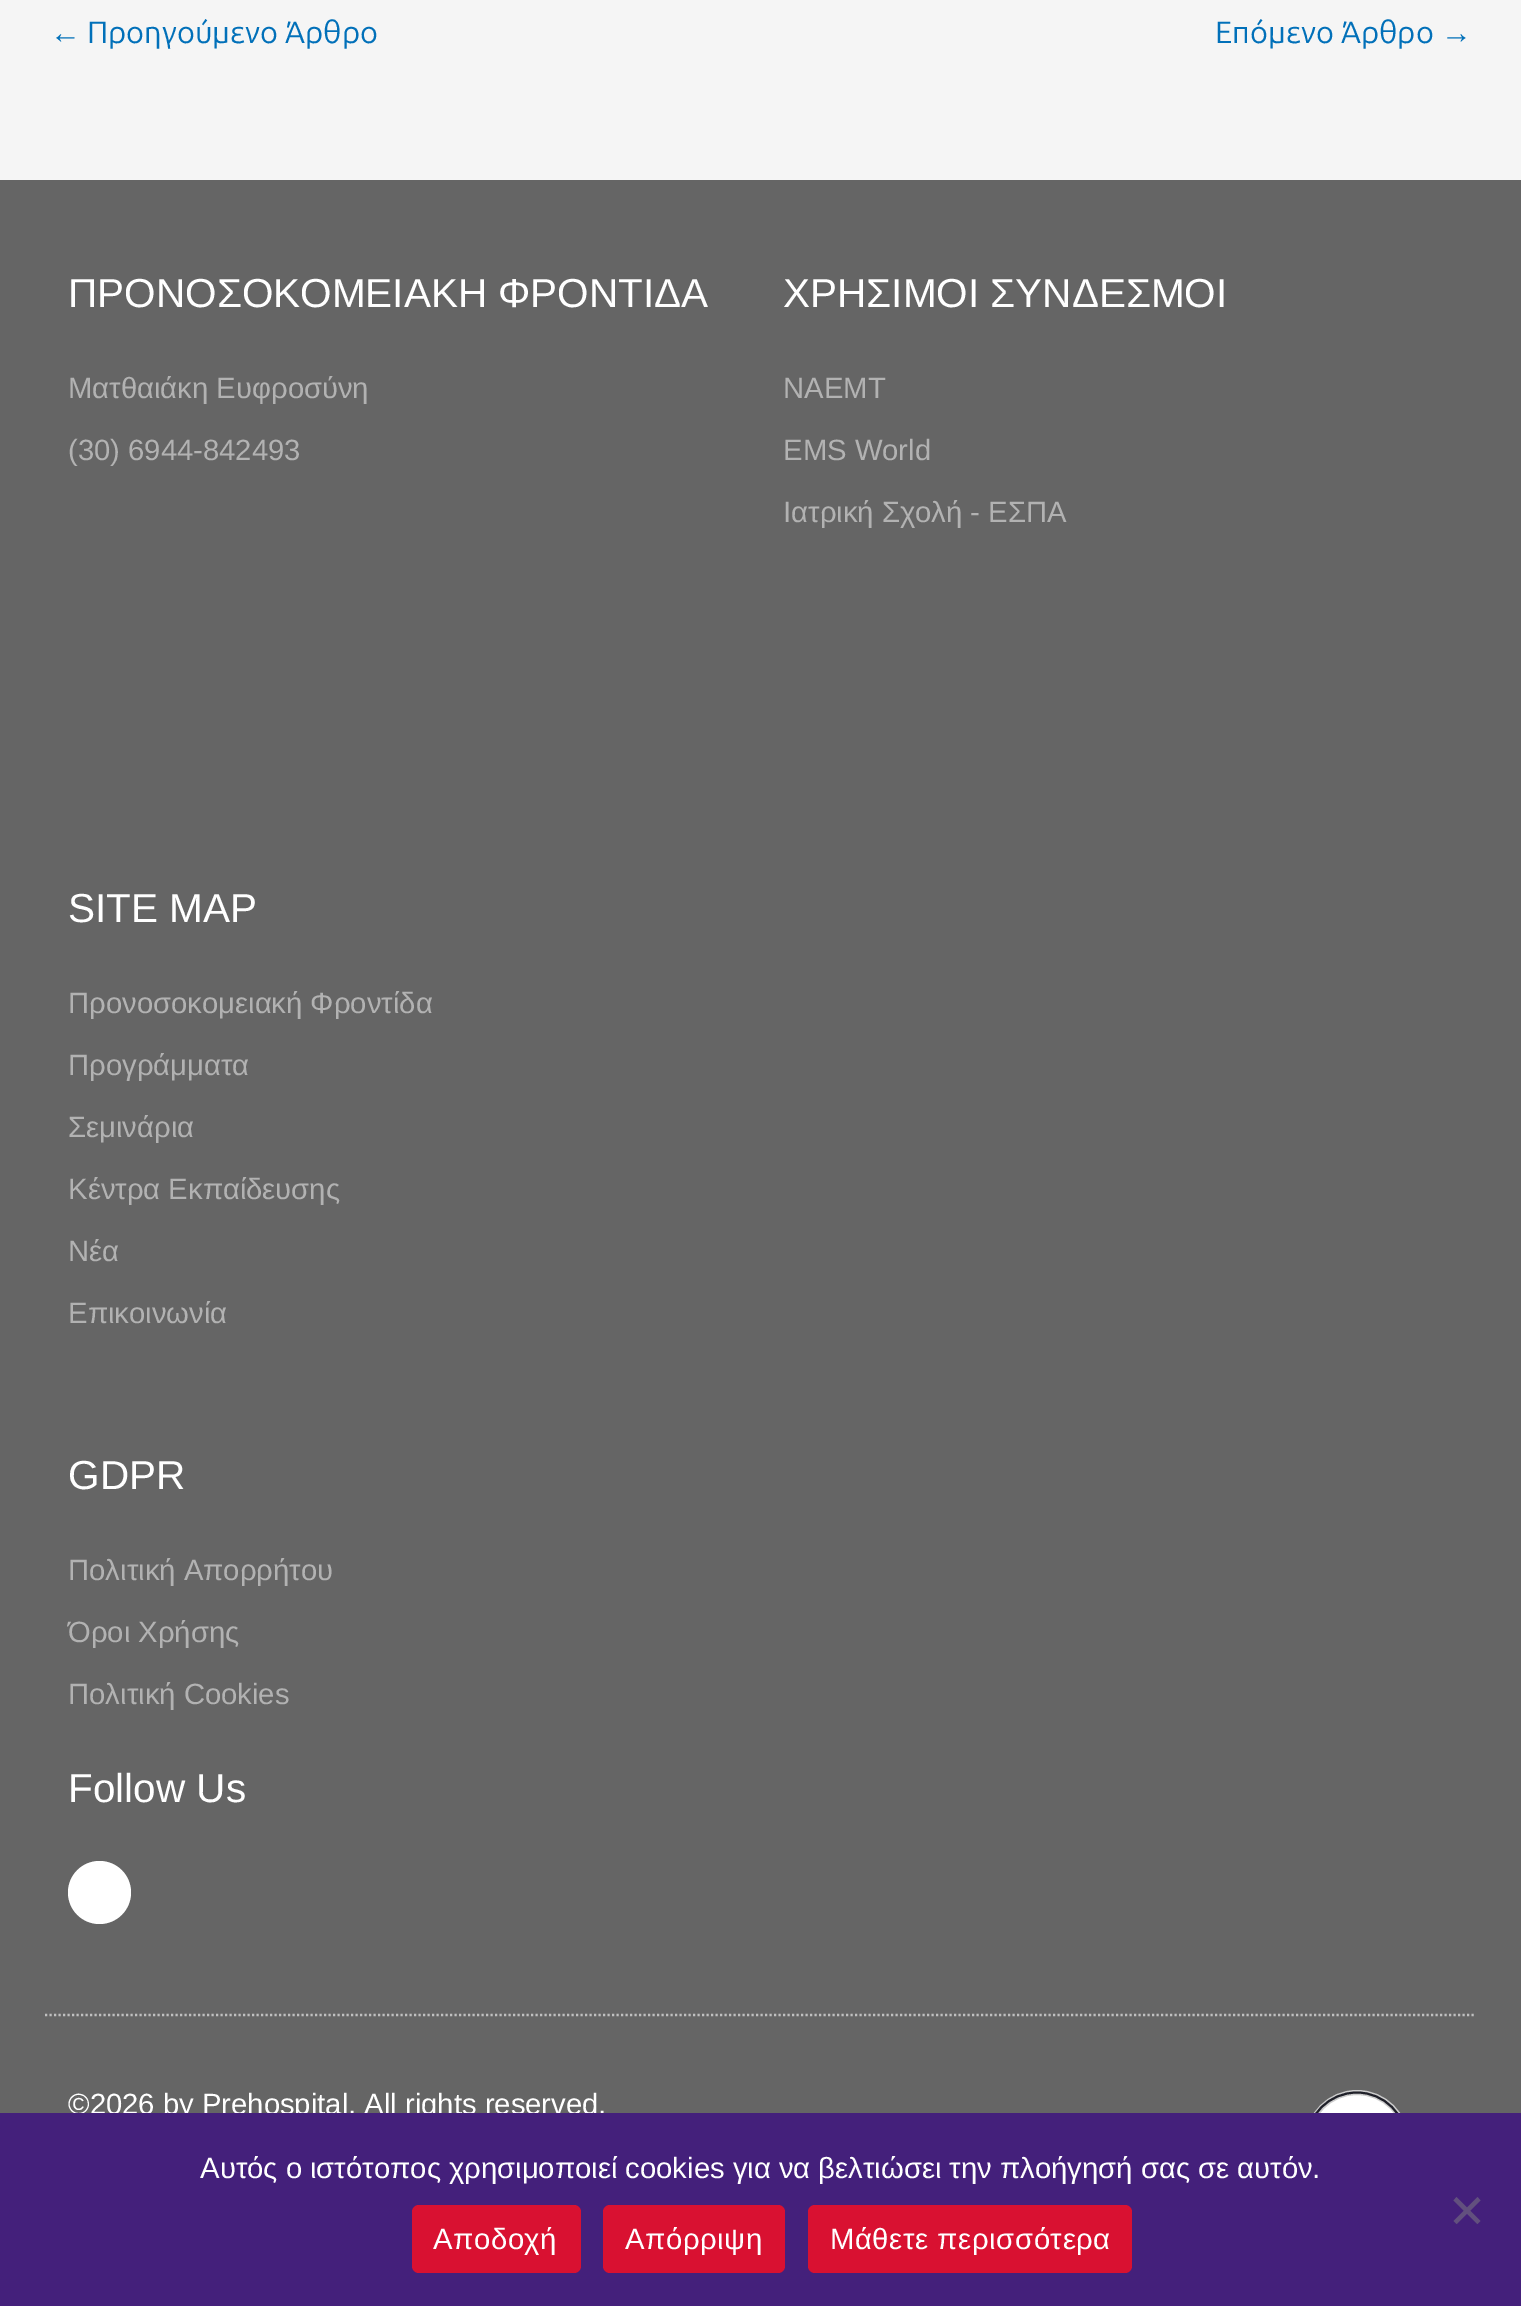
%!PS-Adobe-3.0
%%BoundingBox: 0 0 1521 2306
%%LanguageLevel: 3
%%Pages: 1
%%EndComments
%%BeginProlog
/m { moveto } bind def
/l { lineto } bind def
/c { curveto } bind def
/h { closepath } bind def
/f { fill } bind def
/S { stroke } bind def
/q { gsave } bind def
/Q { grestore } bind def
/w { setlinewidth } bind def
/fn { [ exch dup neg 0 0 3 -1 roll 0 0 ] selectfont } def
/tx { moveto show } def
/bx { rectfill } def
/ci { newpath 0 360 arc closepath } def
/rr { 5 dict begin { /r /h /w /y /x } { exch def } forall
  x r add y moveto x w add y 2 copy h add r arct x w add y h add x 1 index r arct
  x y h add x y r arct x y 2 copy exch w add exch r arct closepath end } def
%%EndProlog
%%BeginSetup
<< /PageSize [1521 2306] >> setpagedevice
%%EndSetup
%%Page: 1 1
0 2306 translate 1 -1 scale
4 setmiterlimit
0.961 setgray
0 0 1521 2306 bx
/LiberationSans-Regular 30.75 fn
0.004 0.439 0.725 setrgbcolor
(←) 50 43 tx
/Ubuntu-Regular 30.75 fn
(Προηγούμενο Άρθρο) 87 43 tx
(Επόμενο Άρθρο) 1215 43 tx
/LiberationSans-Regular 30.75 fn
(→) 1441 43 tx
0.396 setgray
0 180 1521 1933 bx
/LiberationSans-Regular 40.5 fn
1 setgray
(ΠΡΟΝΟΣΟΚΟΜΕΙΑΚΗ ΦΡΟΝΤΙΔΑ) 68 307 tx
/LiberationSans-Regular 29.25 fn
0.698 setgray
(Ματθαιάκη Ευφροσύνη) 68 398 tx
(\(30\) 6944-842493) 68 460 tx
/LiberationSans-Regular 40.5 fn
1 setgray
(ΧΡΗΣΙΜΟΙ ΣΥΝΔΕΣΜΟΙ) 783 307 tx
/LiberationSans-Regular 29.25 fn
0.698 setgray
(ΝΑΕΜΤ) 783 398 tx
(EMS World) 783 460 tx
(Ιατρική Σχολή - ΕΣΠΑ) 783 522 tx
/LiberationSans-Regular 40.5 fn
1 setgray
(SITE MAP) 68 922 tx
/LiberationSans-Regular 29.25 fn
0.698 setgray
(Προνοσοκομειακή Φροντίδα) 68 1013 tx
(Προγράμματα) 68 1075 tx
(Σεμινάρια) 68 1137 tx
(Κέντρα Εκπαίδευσης) 68 1199 tx
(Νέα) 68 1261 tx
(Επικοινωνία) 68 1323 tx
/LiberationSans-Regular 40.5 fn
1 setgray
(GDPR) 68 1489 tx
/LiberationSans-Regular 29.25 fn
0.698 setgray
(Πολιτική Απορρήτου) 68 1580 tx
(Όροι Χρήσης) 68 1642 tx
(Πολιτική Cookies) 68 1704 tx
/LiberationSans-Regular 40.5 fn
1 setgray
(Follow Us) 68 1802 tx
99.5 1892.5 31.5 ci f
0.753 setgray
2.2 w
[2.25 2.25] 0 setdash
45 2015 m 1476 2015 l S
/LiberationSans-Regular 29.25 fn
1 setgray
(©2026 by Prehospital. All rights reserved.) 68 2114 tx
1357 2142 49.5 ci q f Q
0.8 setgray
5 w
[] 0 setdash
S
0.122 0.125 0.161 setrgbcolor
2 w
1357 2092.5 m 1384 2092.5 1406.5 2114.5 1406.5 2142 c 1406.5 2169.5 1384 2191.5 1357 2191.5 c 1329.5 2191.5 1307 2169.5 1307 2142 c 1307 2114.5 1329.5 2092.5 1357 2092.5 c S
0.267 0.125 0.482 setrgbcolor
0 2113 1521 193 bx
1 setgray
(Αυτός ο ιστότοπος χρησιμοποιεί cookies για να βελτιώσει την πλοήγησή σας σε αυτόν.) 200 2178 tx
0.384 0.314 0.494 setrgbcolor
1477.5 2197 m 1480.5 2200.5 l 1456.5 2224 l 1453.5 2221 l h f
1453.5 2200.5 m 1456.5 2197 l 1480.5 2221 l 1477.5 2224 l h f
0.851 0.067 0.192 setrgbcolor
412 2205 169 68 7 rr f
1 setgray
433 2249 m 0.6 0 (Αποδοχή) ashow
0.851 0.067 0.192 setrgbcolor
603 2205 182 68 7 rr f
1 setgray
625 2249 m 0.6 0 (Απόρριψη) ashow
0.851 0.067 0.192 setrgbcolor
808 2205 324 68 7 rr f
1 setgray
830 2249 m 0.6 0 (Μάθετε περισσότερα) ashow
showpage
%%EOF
